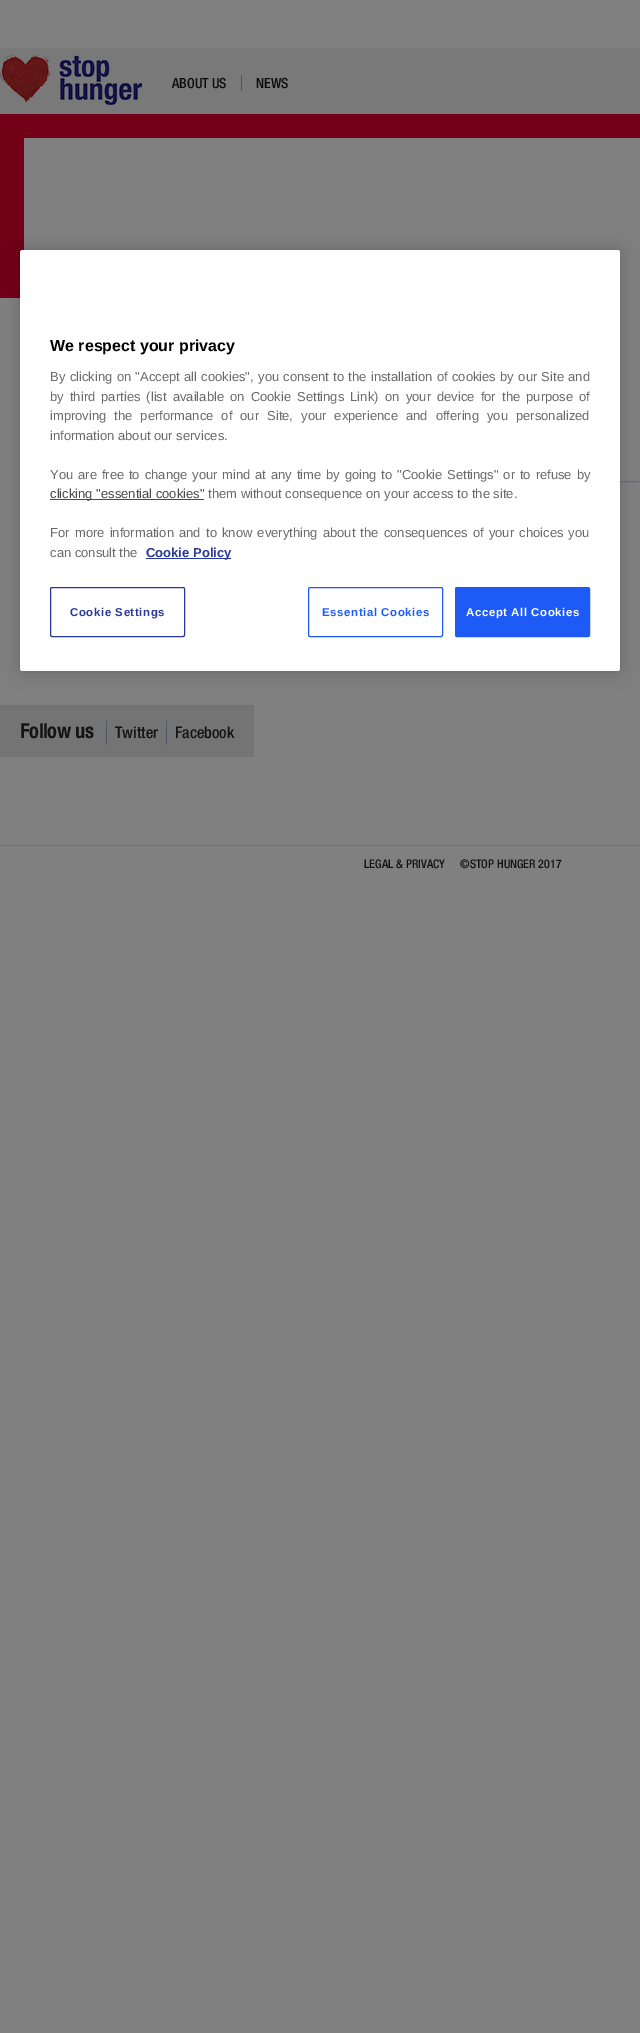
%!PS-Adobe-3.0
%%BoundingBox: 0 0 640 2033
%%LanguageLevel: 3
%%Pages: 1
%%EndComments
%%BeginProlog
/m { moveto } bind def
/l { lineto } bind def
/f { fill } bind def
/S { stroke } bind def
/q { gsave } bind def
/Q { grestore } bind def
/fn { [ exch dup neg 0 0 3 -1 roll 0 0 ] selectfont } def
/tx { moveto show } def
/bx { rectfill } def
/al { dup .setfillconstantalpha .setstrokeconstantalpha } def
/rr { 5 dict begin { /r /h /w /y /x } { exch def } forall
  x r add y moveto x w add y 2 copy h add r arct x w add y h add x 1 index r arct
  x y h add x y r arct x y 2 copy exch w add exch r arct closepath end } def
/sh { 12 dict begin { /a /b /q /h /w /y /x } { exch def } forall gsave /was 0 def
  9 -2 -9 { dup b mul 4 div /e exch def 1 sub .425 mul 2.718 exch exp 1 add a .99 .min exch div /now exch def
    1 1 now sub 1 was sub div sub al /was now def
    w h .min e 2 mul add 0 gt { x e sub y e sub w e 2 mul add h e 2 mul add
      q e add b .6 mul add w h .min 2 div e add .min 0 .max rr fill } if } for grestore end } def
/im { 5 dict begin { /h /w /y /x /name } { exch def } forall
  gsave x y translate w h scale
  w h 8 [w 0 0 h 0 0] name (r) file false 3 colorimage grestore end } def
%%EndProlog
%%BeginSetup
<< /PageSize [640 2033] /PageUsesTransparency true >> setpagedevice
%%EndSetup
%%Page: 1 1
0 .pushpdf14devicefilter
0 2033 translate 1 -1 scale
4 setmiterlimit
0.502 setgray
0 0 640 2033 bx
0.447 0 0.09 setrgbcolor
0 114 640 24 bx
0.475 setgray
0 48 640 66 bx
(image0.raw) 0 55 142 50 im
/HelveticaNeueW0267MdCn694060-Regular 14 fn
0.051 setgray
(ABOUT US) 172 88 tx
0.325 0.322 0.4 setrgbcolor
241 75 1 16 bx
0.051 setgray
(NEWS) 256 88 tx
0.447 0 0.09 setrgbcolor
0 138 24 160 bx
0.329 0.341 0.408 setrgbcolor
[1 1] 0 setdash
32 481.5 m 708 481.5 l S
0.455 setgray
0 705 254 52 bx
/HelveticaNeueW0267MdCn694060-Bold 20 fn
0.078 setgray
(Follow us) 20 738 tx
0.329 0.341 0.408 setrgbcolor
106 721 1 24 bx
/HelveticaNeueW0267MdCn694060-Regular 16 fn
0.078 setgray
(Twitter) 115 738 tx
0.329 0.341 0.408 setrgbcolor
166 721 1 24 bx
0.078 setgray
(Facebook) 175 738 tx
0.455 setgray
0 845 640 1 bx
/HelveticaNeueW0267MdCn694060-Regular 12 fn
0.078 setgray
(LEGAL & PRIVACY) 364 868 tx
(©STOP HUNGER 2017) 460 868 tx
0 setgray
20 250 600 421 2.5 9 0.2 sh
1 setgray
20 250 600 421 2.5 rr f
/LiberationSans-Bold 16 fn
0 setgray
(We respect your privacy) 50 351 tx
/LiberationSans-Regular 13 fn
0.412 setgray
50 381 m 0.75 0 32 (By clicking on "Accept all cookies", you consent to the installation of cookies by our Site and) widthshow
50 401 m 2.5 0 32 (by third parties \(list available on Cookie Settings Link\)) widthshow
385 401 m 2.5 0 32 (on your device for the purpose of) widthshow
50 420 m 4.4 0 32 (improving the performance of our Site, your experience and offering you personalized) widthshow
(information about our services.) 50 440 tx
50 479 m 1.25 0 32 (You are free to change your mind at any time by going to "Cookie Settings" or to refuse by) widthshow
0.29 setgray
50 499 154 1 bx
(clicking "essential cookies") 50 498 tx
0.412 setgray
(them without consequence on your access to the site.) 208 498 tx
50 537 m 1.6 0 32 (For more information and to know everything about the consequences of your choices you) widthshow
(can consult the) 50 557 tx
0.157 0.22 0.592 setrgbcolor
146 558 85 1 bx
/LiberationSans-Bold 13 fn
(Cookie Policy) 146 557 tx
[] 0 setdash
50.5 587.5 134 49 1.5 rr S
/LiberationSans-Bold 11.4 fn
70 616 m 0.6 0 (Cookie Settings) ashow
0.118 0.357 0.965 setrgbcolor
308.5 587.5 134 49 1.5 rr S
322 616 m 0.6 0 (Essential Cookies) ashow
455.5 587.5 134 49 1.5 rr q f Q
S
1 setgray
466 616 m 0.6 0 (Accept All Cookies) ashow
.poppdf14devicefilter showpage
%%EOF
